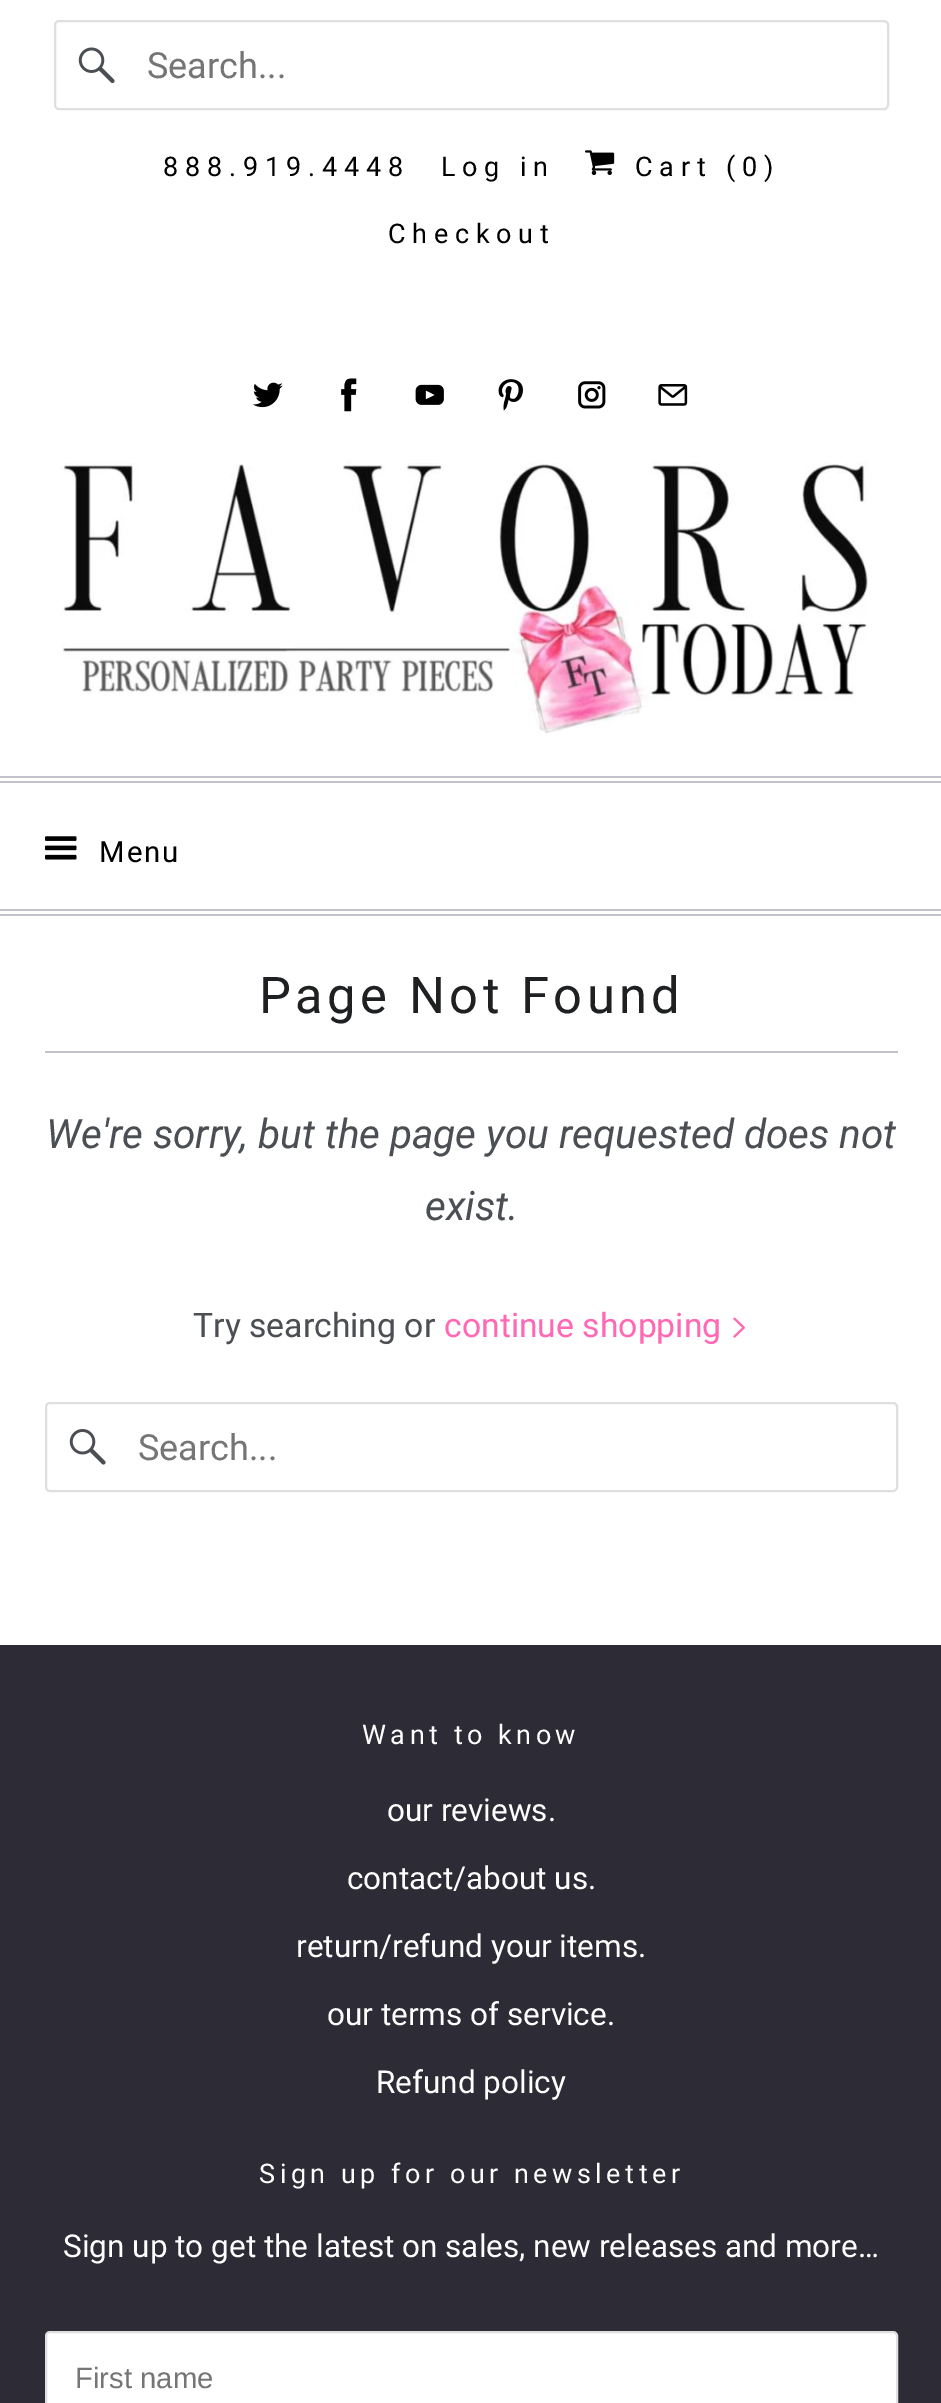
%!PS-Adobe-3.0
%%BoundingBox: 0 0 941 2403
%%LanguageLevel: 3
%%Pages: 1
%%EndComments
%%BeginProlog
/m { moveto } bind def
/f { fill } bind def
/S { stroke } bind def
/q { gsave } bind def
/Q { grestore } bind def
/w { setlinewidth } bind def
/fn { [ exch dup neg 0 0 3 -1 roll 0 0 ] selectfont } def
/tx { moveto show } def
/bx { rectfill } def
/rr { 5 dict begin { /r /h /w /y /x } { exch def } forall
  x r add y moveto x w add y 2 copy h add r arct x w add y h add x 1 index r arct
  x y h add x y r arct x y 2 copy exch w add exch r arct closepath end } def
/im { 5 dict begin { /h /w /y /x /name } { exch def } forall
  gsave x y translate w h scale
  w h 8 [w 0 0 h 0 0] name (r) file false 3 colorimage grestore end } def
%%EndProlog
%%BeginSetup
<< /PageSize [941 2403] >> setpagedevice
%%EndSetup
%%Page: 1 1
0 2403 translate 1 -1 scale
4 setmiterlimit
1 setgray
0 0 941 2403 bx
0.875 setgray
2 w
55 21 833 88 4 rr S
(image0.raw) 78 47 37 37 im
/Roboto-Regular 36 fn
0.459 setgray
(Search...) 147 78 tx
/Roboto-Regular 27 fn
0 setgray
163 176 m 6.75 0 (888.919.4448) ashow
441 176 m 6.75 0 (Log in) ashow
(image1.raw) 585 150 30 26 im
635 176 m 6.75 0 (Cart \(0\)) ashow
388 243 m 6.75 0 (Checkout) ashow
(image2.raw) 253 382 30 26 im
(image3.raw) 341 378 16 34 im
(image4.raw) 415 384 29 21 im
(image5.raw) 498 379 25 32 im
(image6.raw) 578 381 28 28 im
(image7.raw) 658 384 30 22 im
(image8.raw) 60 461 808 273 im
0.761 0.757 0.8 setrgbcolor
0 776 941 2 bx
0 781 941 2 bx
0 909 941 2 bx
0 914 941 2 bx
(image9.raw) 45 836 32 24 im
/Roboto-Regular 29.25 fn
0 setgray
99 862 m 2 0 (Menu) ashow
0.761 0.757 0.8 setrgbcolor
45 1051 853 2 bx
/Roboto-Regular 50.6 fn
0.122 0.125 0.133 setrgbcolor
259 1013 m 4.5 0 (Page Not Found) ashow
/Roboto-Italic 40.5 fn
0.294 0.31 0.329 setrgbcolor
(We're sorry, but the page you requested does not) 46 1148 tx
(exist.) 425 1220 tx
/Roboto-Regular 33.75 fn
(Try searching or) 193 1337 tx
1 0.412 0.706 setrgbcolor
(continue shopping) 444 1337 tx
(image10.raw) 733 1317 12 21 im
0.875 setgray
46 1403 851 88 4 rr S
(image11.raw) 69 1429 37 36 im
/Roboto-Regular 36 fn
0.459 setgray
(Search...) 138 1460 tx
0.176 0.169 0.208 setrgbcolor
0 1645 941 758 bx
/Roboto-Regular 27 fn
1 setgray
362 1744 m 4.5 0 (Want to know) ashow
/Roboto-Regular 31.5 fn
(our reviews.) 387 1821 tx
(contact/about us.) 347 1889 tx
(return/refund your items.) 296 1957 tx
(our terms of service.) 327 2025 tx
(Refund policy) 376 2093 tx
/Roboto-Regular 27 fn
259 2183 m 4.5 0 (Sign up for our newsletter) ashow
/Roboto-Regular 31.5 fn
(Sign up to get the latest on sales, new releases and more…) 63 2257 tx
46 2332 851 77 4 rr q f Q
0.875 setgray
S
/LiberationSans-Regular 29.25 fn
0.459 setgray
(First name) 75 2388 tx
showpage
%%EOF
